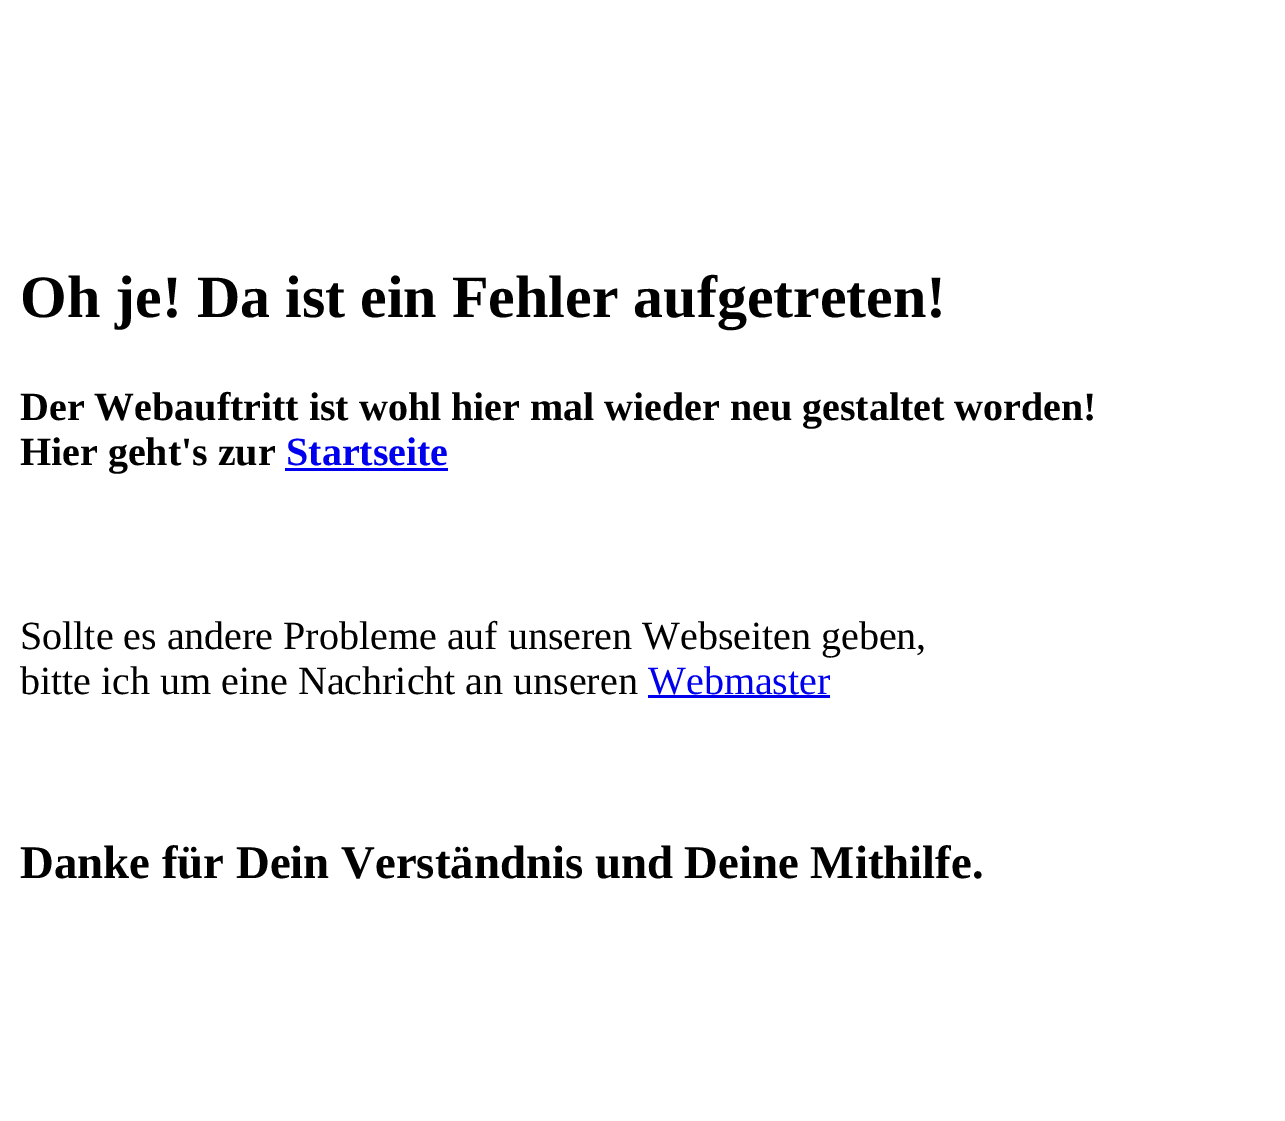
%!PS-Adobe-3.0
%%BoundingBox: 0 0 1285 1121
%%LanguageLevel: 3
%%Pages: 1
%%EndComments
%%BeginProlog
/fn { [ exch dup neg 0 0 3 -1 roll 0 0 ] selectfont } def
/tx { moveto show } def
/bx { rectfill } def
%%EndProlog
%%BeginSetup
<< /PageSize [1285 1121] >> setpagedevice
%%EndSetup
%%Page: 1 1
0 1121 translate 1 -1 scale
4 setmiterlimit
1 setgray
0 0 1285 1121 bx
/LiberationSerif-Bold 60 fn
0 setgray
(Oh je! Da ist ein Fehler aufgetreten!) 20 317 tx
/LiberationSerif-Bold 40 fn
(Der Webauftritt ist wohl hier mal wieder neu gestaltet worden!) 20 420 tx
(Hier geht's zur) 20 465 tx
0 0 0.933 setrgbcolor
(Startseite) 286 465 tx
285 468 163 3 bx
/LiberationSerif-Regular 40 fn
0 setgray
(Sollte es andere Probleme auf unseren Webseiten geben,) 20 649 tx
(bitte ich um eine Nachricht an unseren) 20 694 tx
0 0 0.933 setrgbcolor
(Webmaster) 648 694 tx
648 695 182 3 bx
/LiberationSerif-Bold 46.8 fn
0 setgray
(Danke für Dein Verständnis und Deine Mithilfe.) 20 878 tx
showpage
%%EOF
